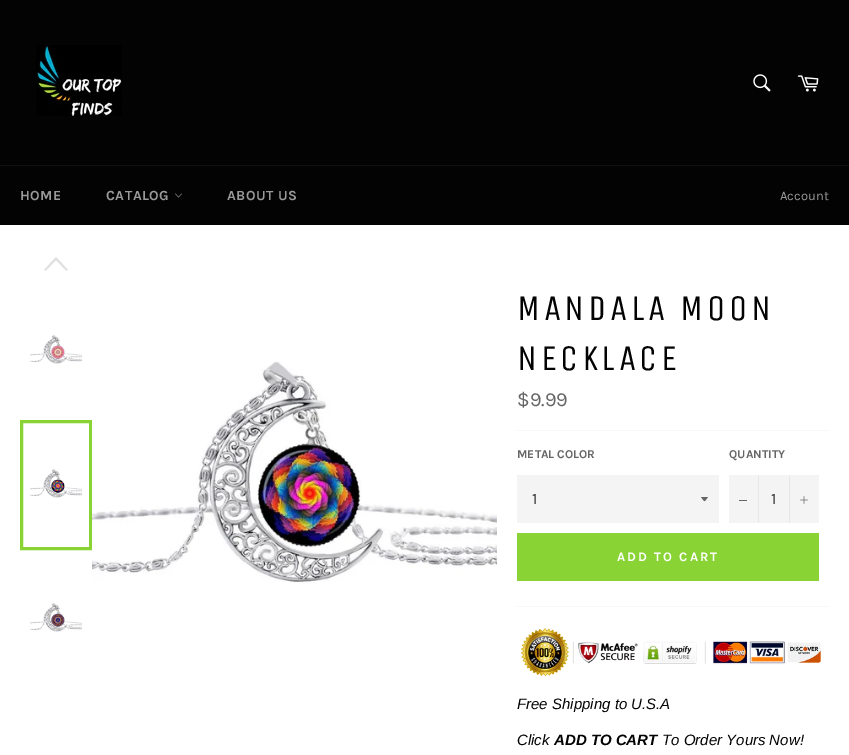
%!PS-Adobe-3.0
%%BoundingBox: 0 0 849 755
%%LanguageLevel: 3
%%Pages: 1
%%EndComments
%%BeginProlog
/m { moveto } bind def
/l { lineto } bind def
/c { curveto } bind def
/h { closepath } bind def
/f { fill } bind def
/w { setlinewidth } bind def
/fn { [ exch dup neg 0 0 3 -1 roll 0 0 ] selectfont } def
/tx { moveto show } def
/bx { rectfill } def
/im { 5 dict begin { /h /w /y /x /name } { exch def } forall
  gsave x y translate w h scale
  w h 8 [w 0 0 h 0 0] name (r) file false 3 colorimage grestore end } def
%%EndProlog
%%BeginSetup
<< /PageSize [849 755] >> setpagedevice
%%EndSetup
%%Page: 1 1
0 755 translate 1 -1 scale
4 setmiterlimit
0.012 setgray
0 0 849 755 bx
(image0.raw) 36 45 86 71 im
(image1.raw) 753 74 18 18 im
(image2.raw) 797 75 22 17 im
0.063 setgray
0 165 849 1 bx
/Karla-Bold 14 fn
0.604 setgray
20 200 m 0.5 0 (HOME) ashow
106 200 m 0.5 0 (CATALOG) ashow
(image3.raw) 175 193 7 5 im
227 200 m 0.5 0 (ABOUT US) ashow
/Karla-Regular 13 fn
(Account) 780 200 tx
1 setgray
0 225 849 530 bx
0.878 setgray
66.5 271 m 67.5 269.5 l 56 257 l 44.5 269.5 l 45.5 271 l 56 260 l h f
(image4.raw) 30 335 52 29 im
(image5.raw) 30 469 52 29 im
0.537 0.827 0.208 setrgbcolor
3 w
21.5 421.5 69 127 rectstroke
(image6.raw) 30 603 52 29 im
(image7.raw) 92 361 405 223 im
/UnicaOne-Regular 36 fn
0.012 setgray
517 320 m 3.6 0 (MANDALA MOON) ashow
517 370 m 3.6 0 (NECKLACE) ashow
/Karla-Regular 20 fn
0.4 setgray
($9.99) 517 406 tx
0.969 setgray
517 430 312 1 bx
/Karla-Bold 12 fn
0.4 setgray
(METAL COLOR) 517 458 tx
0.957 setgray
517 475 202 48 bx
0.4 setgray
701 497 m 705.5 502.5 703.5 502.5 708 497 c h f
/Karla-Regular 16 fn
0.2 setgray
(1) 532 504 tx
/Karla-Bold 12 fn
0.4 setgray
(QUANTITY) 729 458 tx
0.957 setgray
729 475 90 48 bx
0.906 setgray
758 475 1 48 bx
0.4 setgray
739 500 8 1 bx
/Karla-Regular 16 fn
0.2 setgray
(1) 771 504 tx
0.906 setgray
789 475 1 48 bx
(image8.raw) 800 496 8 8 im
0.537 0.827 0.208 setrgbcolor
517 533 302 48 bx
/Karla-Bold 13 fn
1 setgray
617 561 m 2 0 (ADD TO CART) ashow
0.969 setgray
517 606 312 1 bx
(image9.raw) 521 628 300 49 im
/LiberationSans-Italic 15 fn
0.012 setgray
(Free Shipping to U.S.A) 517 709 tx
(Click) 517 745 tx
/LiberationSans-BoldItalic 15 fn
(ADD TO CART) 554 745 tx
/LiberationSans-Italic 15 fn
(To Order Yours Now!) 662 745 tx
showpage
%%EOF
